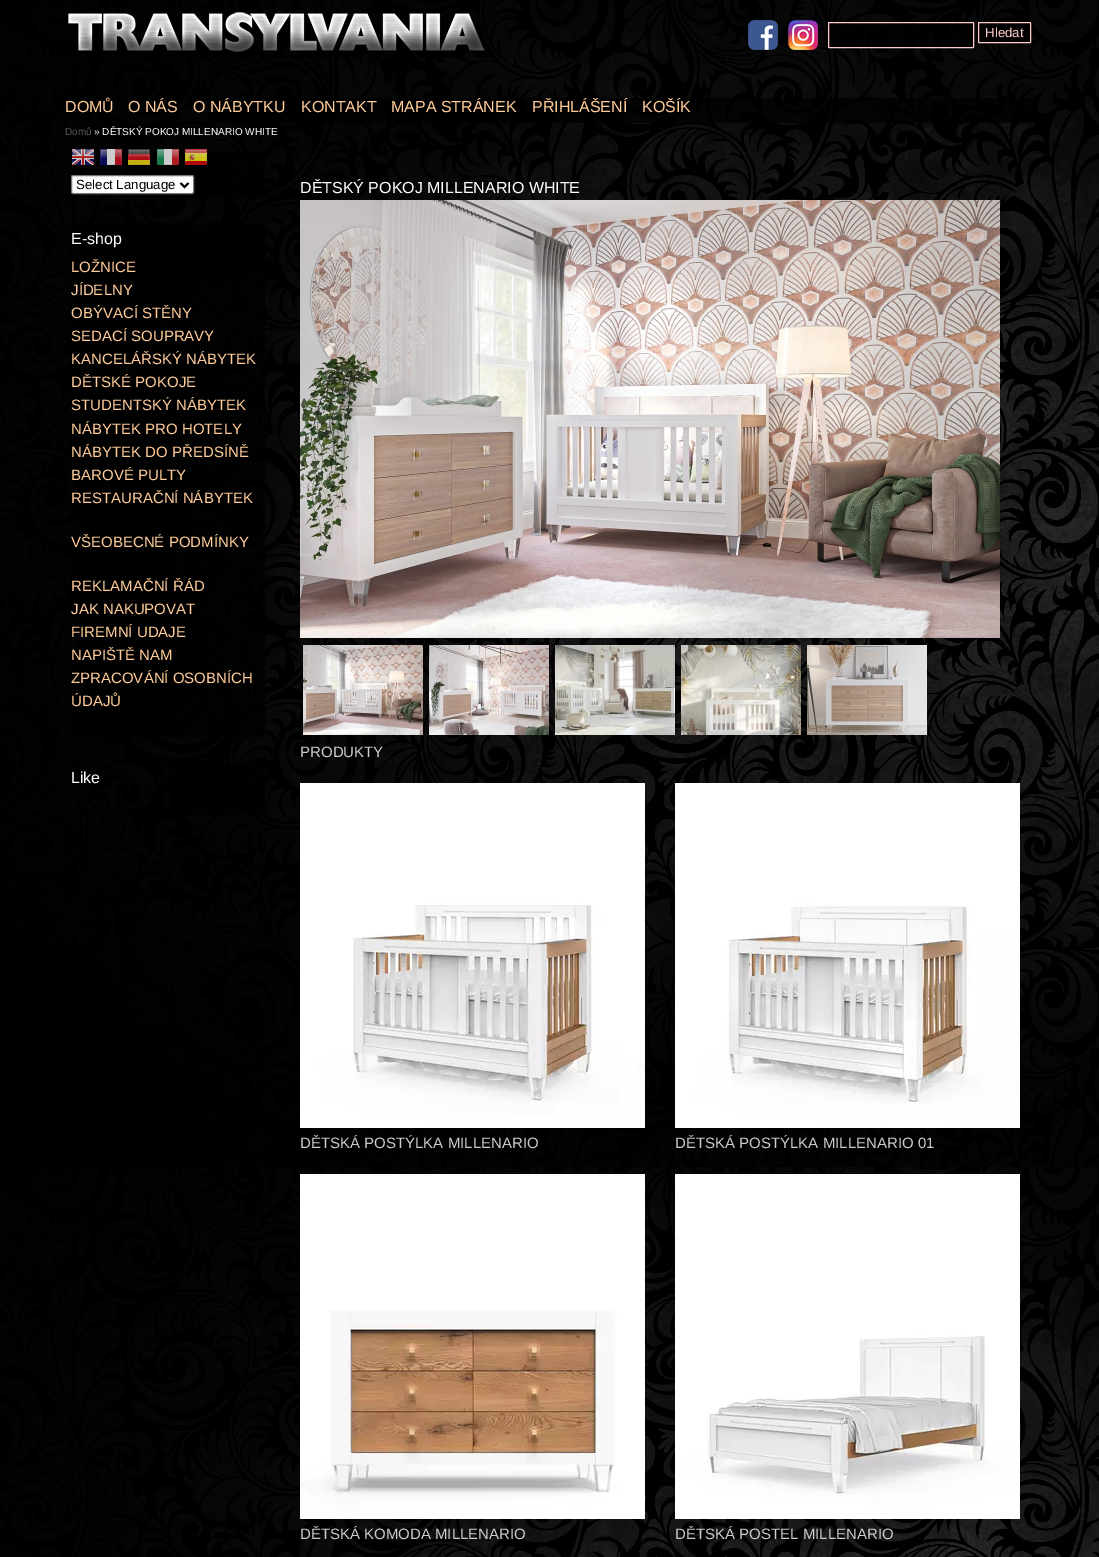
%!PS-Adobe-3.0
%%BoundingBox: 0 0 1099 1557
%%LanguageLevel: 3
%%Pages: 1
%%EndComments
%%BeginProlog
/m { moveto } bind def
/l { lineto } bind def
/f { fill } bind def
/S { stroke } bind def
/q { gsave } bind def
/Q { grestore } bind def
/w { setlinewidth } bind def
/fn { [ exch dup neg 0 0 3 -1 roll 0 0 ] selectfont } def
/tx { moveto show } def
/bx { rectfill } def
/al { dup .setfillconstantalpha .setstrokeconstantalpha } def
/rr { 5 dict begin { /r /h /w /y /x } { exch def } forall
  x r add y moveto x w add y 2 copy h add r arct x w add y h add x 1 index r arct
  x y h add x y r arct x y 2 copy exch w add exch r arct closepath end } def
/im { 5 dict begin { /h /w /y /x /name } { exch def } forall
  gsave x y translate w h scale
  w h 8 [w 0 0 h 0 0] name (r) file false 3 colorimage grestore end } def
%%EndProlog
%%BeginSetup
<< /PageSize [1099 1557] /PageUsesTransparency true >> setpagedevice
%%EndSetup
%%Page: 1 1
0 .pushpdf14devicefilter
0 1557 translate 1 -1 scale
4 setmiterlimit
1 setgray
0 0 1099 1557 bx
(image0.raw) 0 0 1099 1557 im
(image1.raw) 68 12 422 46 im
(image2.raw) 748 20 30 30 im
(image3.raw) 788 20 30 30 im
0.7 al
0 setgray
828.5 22.5 145 25 0.5 rr f
1 al
1 0.8 0.8 setrgbcolor
828.5 22.5 145 25 0.5 rr S
0 setgray
978.5 22.5 52 20 0.5 rr q f Q
1 0.8 0.8 setrgbcolor
S
/LiberationSans-Regular 13.25 fn
(Hledat) 985 37 tx
(image4.raw) 211 98 823 25 im
/LiberationSans-Regular 16 fn
1 0.8 0.6 setrgbcolor
(DOMŮ) 65 112 tx
(O NÁS) 128 112 tx
(O NÁBYTKU) 193 112 tx
(KONTAKT) 301 112 tx
(MAPA STRÁNEK) 391 112 tx
(PŘIHLÁŠENÍ) 532 112 tx
(KOŠÍK) 642 112 tx
/LiberationSans-Regular 10 fn
0.345 setgray
(Domů) 65 135 tx
1 setgray
(» DĚTSKÝ POKOJ MILLENARIO WHITE) 94 135 tx
0.7 al
0 setgray
135 152 130 46 bx
1 al
(image5.raw) 72 149 22 16 im
(image6.raw) 100 149 22 16 im
(image7.raw) 128 149 22 16 im
(image8.raw) 157 149 22 16 im
(image9.raw) 185 149 22 16 im
1 setgray
71.5 175.5 122 18 1.5 rr q f Q
0.463 setgray
S
0 setgray
2 w
180.5 183 m 184.5 187 l 188.5 183 l S
/LiberationSans-Regular 13.25 fn
(Select Language) 76 189 tx
0.7 al
74 223 191 514 bx
/LiberationSans-Regular 16 fn
1 al
1 setgray
(E-shop) 71 244 tx
/LiberationSans-Regular 15 fn
1 0.8 0.6 setrgbcolor
(LOŽNICE) 71 272 tx
(JÍDELNY) 71 295 tx
(OBÝVACÍ STĚNY) 71 318 tx
(SEDACÍ SOUPRAVY) 71 341 tx
(KANCELÁŘSKÝ NÁBYTEK) 71 364 tx
(DĚTSKÉ POKOJE) 71 387 tx
(STUDENTSKÝ NÁBYTEK) 71 410 tx
(NÁBYTEK PRO HOTELY) 71 434 tx
(NÁBYTEK DO PŘEDSÍNĚ) 71 457 tx
(BAROVÉ PULTY) 71 480 tx
(RESTAURAČNÍ NÁBYTEK) 71 503 tx
(VŠEOBECNÉ PODMÍNKY) 71 547 tx
(REKLAMAČNÍ ŘÁD) 71 591 tx
(JAK NAKUPOVAT) 71 614 tx
(FIREMNÍ UDAJE) 71 637 tx
(NAPIŠTĚ NAM) 71 660 tx
(ZPRACOVÁNÍ OSOBNÍCH) 71 683 tx
(ÚDAJŮ) 71 706 tx
0.7 al
0 setgray
169 762 96 53 bx
/LiberationSans-Regular 16 fn
1 al
1 setgray
(Like) 71 783 tx
(DĚTSKÝ POKOJ MILLENARIO WHITE) 300 193 tx
(image10.raw) 300 200 700 438 im
(image11.raw) 303 645 120 90 im
(image12.raw) 429 645 120 90 im
(image13.raw) 555 645 120 90 im
(image14.raw) 681 645 120 90 im
(image15.raw) 807 645 120 90 im
/LiberationSans-Regular 15 fn
0.8 setgray
(PRODUKTY) 300 757 tx
(image16.raw) 300 783 345 345 im
(DĚTSKÁ POSTÝLKA MILLENARIO) 300 1148 tx
(image17.raw) 675 783 345 345 im
(DĚTSKÁ POSTÝLKA MILLENARIO 01) 675 1148 tx
(image18.raw) 300 1174 345 345 im
(DĚTSKÁ KOMODA MILLENARIO) 300 1539 tx
(image19.raw) 675 1174 345 345 im
(DĚTSKÁ POSTEL MILLENARIO) 675 1539 tx
.poppdf14devicefilter showpage
%%EOF
